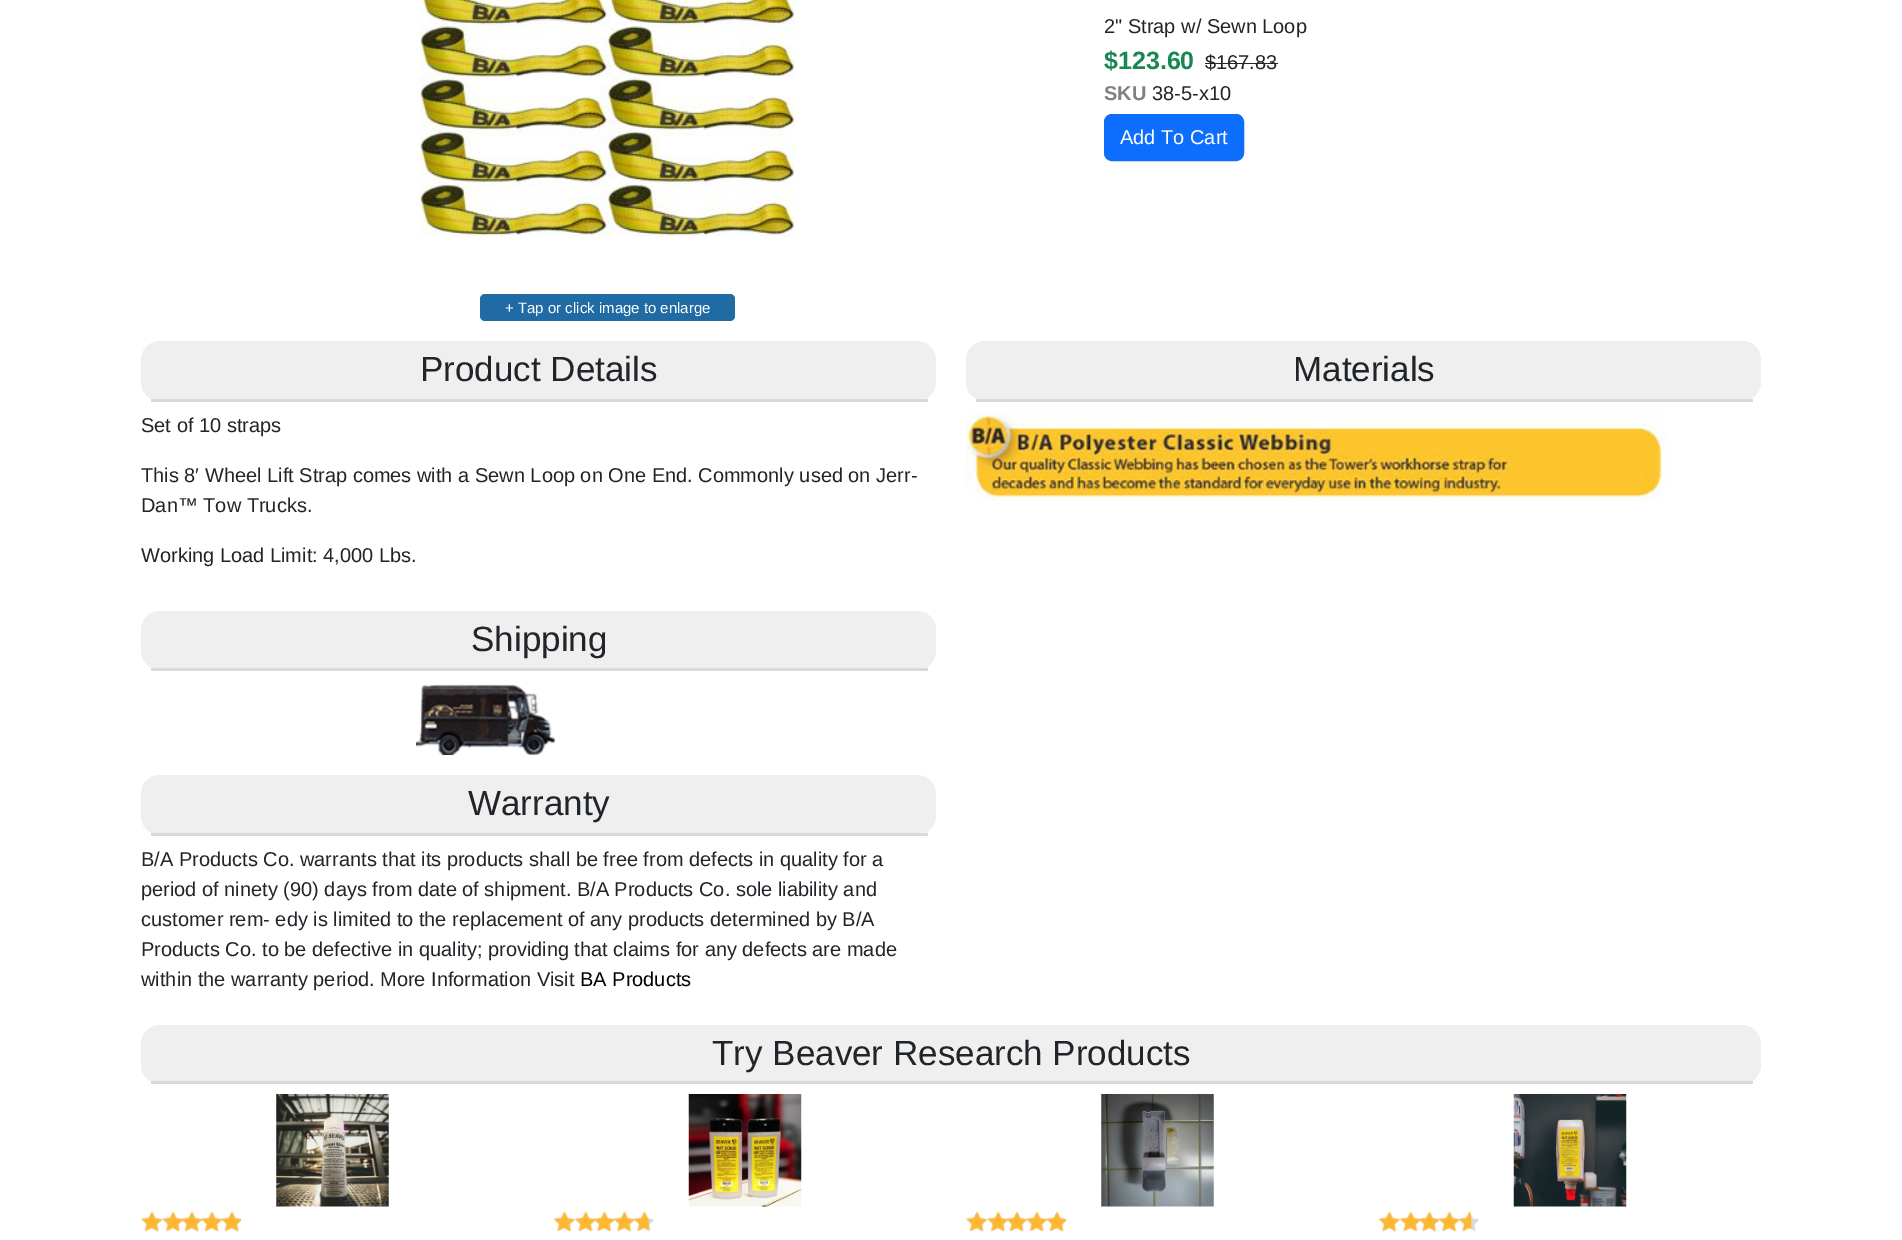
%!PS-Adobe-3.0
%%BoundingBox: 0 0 1902 1240
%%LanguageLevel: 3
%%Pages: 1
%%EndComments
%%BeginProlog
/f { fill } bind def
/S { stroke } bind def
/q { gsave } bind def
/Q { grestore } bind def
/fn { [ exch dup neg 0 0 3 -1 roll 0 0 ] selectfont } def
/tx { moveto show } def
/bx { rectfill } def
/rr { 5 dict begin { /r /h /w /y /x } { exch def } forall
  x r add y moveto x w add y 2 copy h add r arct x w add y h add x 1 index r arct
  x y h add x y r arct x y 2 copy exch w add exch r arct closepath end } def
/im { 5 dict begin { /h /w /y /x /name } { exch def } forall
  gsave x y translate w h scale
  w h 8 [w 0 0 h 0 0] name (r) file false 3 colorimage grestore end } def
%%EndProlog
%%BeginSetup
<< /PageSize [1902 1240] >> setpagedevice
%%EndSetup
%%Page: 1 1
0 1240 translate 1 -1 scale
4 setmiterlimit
1 setgray
0 0 1902 1240 bx
/LiberationSans-Regular 20 fn
0.129 0.145 0.161 setrgbcolor
(2" Strap w/ Sewn Loop) 1104 33 tx
/LiberationSans-Bold 25 fn
0.098 0.529 0.329 setrgbcolor
($123.60) 1104 69 tx
/LiberationSans-Regular 20 fn
0.129 0.145 0.161 setrgbcolor
($167.83) 1205 69 tx
1205 63 73 1 bx
/LiberationSans-Bold 20 fn
0.502 setgray
(SKU) 1104 100 tx
/LiberationSans-Regular 20 fn
0.129 0.145 0.161 setrgbcolor
(38-5-x10) 1152 100 tx
0.051 0.431 0.992 setrgbcolor
1104.5 114.5 139 46 7.5 rr q f Q
S
1 setgray
(Add To Cart) 1120 144 tx
(image0.raw) 420 0 375 238 im
0.125 0.42 0.643 setrgbcolor
480 294 255 27 5 rr f
/LiberationSans-Regular 15 fn
1 setgray
(+ Tap or click image to enlarge) 505 313 tx
0.937 setgray
141 341 795 60 19 rr f
0.851 setgray
151 399 777 3 bx
/LiberationSans-Regular 35 fn
0.129 0.145 0.161 setrgbcolor
(Product Details) 420 381 tx
/LiberationSans-Regular 20 fn
(Set of 10 straps) 141 432 tx
(This 8′ Wheel Lift Strap comes with a Sewn Loop on One End. Commonly used on Jerr-) 141 482 tx
(Dan™ Tow Trucks.) 141 512 tx
(Working Load Limit: 4,000 Lbs.) 141 562 tx
0.937 setgray
966 341 795 60 19 rr f
0.851 setgray
976 399 777 3 bx
/LiberationSans-Regular 35 fn
0.129 0.145 0.161 setrgbcolor
(Materials) 1293 381 tx
(image1.raw) 966 411 700 90 im
0.937 setgray
141 611 795 59 19 rr f
0.851 setgray
151 668 777 3 bx
0.129 0.145 0.161 setrgbcolor
(Shipping) 471 651 tx
(image2.raw) 416 684 139 71 im
0.937 setgray
141 775 795 60 19 rr f
0.851 setgray
151 833 777 3 bx
0.129 0.145 0.161 setrgbcolor
(Warranty) 468 815 tx
/LiberationSans-Regular 20 fn
(B/A Products Co. warrants that its products shall be free from defects in quality for a) 141 866 tx
(period of ninety \(90\) days from date of shipment. B/A Products Co. sole liability and) 141 896 tx
(customer rem- edy is limited to the replacement of any products determined by B/A) 141 926 tx
(Products Co. to be defective in quality; providing that claims for any defects are made) 141 956 tx
(within the warranty period. More Information Visit) 141 986 tx
0 setgray
(BA Products) 580 986 tx
0.937 setgray
141 1025 1620 59 19 rr f
0.851 setgray
151 1081 1602 3 bx
/LiberationSans-Regular 35 fn
0.129 0.145 0.161 setrgbcolor
(Try Beaver Research Products) 712 1065 tx
(image3.raw) 276 1094 113 113 im
(image4.raw) 141 1212 100 20 im
(image5.raw) 141 1211 101 21 im
(image6.raw) 688 1094 114 113 im
(image7.raw) 554 1211 100 21 im
(image8.raw) 554 1211 95 21 im
(image9.raw) 1101 1094 113 113 im
(image4.raw) 966 1212 100 20 im
(image5.raw) 966 1211 101 21 im
(image10.raw) 1513 1094 114 113 im
(image7.raw) 1379 1211 100 21 im
(image11.raw) 1379 1211 93 21 im
showpage
%%EOF
